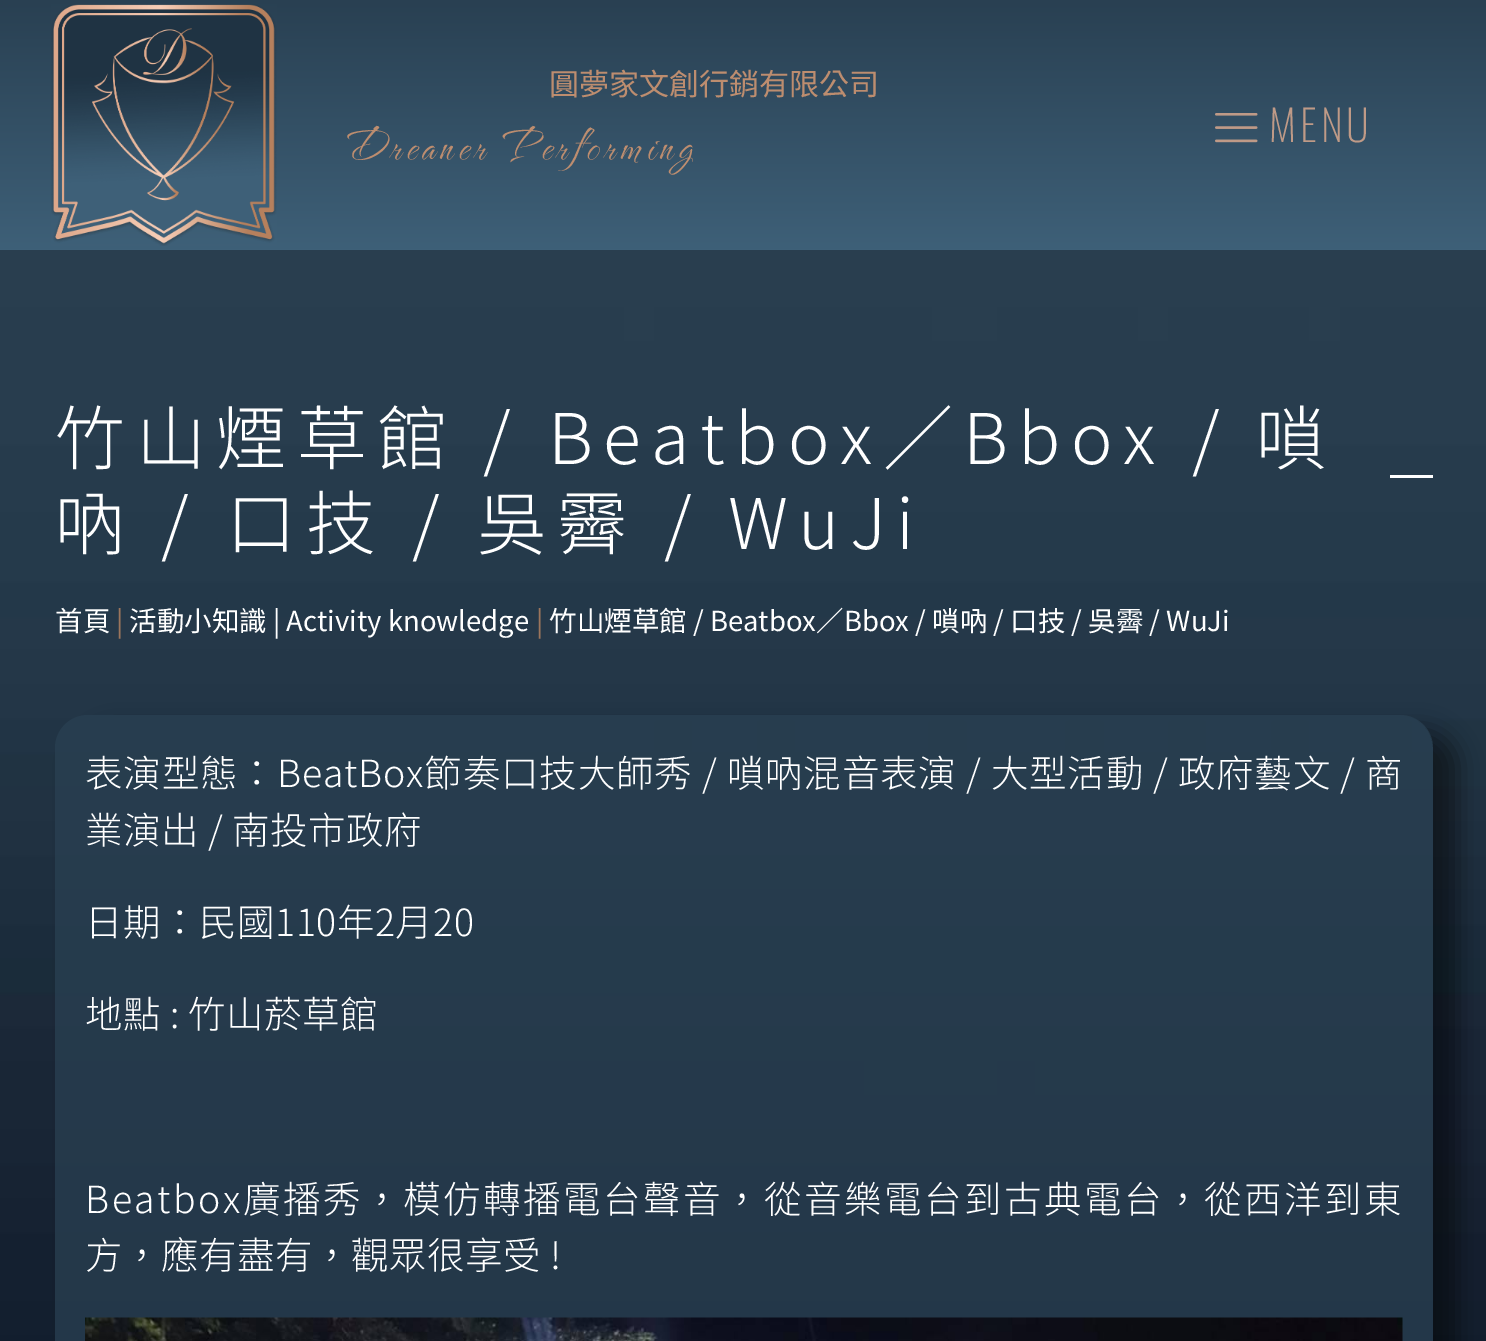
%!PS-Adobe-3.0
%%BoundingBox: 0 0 1486 1341
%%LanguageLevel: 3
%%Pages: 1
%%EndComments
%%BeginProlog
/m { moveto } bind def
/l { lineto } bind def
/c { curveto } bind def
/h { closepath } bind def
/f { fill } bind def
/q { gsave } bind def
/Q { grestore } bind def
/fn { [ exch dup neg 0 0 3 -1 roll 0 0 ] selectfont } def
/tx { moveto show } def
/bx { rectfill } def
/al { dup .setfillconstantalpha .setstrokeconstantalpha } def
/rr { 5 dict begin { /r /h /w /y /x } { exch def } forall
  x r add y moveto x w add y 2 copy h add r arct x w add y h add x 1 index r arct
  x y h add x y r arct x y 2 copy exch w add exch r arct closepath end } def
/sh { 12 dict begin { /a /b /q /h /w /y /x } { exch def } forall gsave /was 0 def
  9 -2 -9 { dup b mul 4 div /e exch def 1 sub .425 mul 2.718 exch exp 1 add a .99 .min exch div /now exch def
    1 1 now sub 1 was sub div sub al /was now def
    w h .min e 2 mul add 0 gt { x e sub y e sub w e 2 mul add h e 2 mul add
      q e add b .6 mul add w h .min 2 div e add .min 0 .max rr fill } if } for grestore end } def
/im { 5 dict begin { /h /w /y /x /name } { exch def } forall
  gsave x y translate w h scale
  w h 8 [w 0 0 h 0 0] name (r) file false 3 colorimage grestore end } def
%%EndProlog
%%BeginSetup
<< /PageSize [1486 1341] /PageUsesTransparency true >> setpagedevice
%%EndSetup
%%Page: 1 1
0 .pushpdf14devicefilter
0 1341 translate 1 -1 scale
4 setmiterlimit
1 setgray
0 0 1486 1341 bx
(image0.raw) 0 250 1486 1091 im
q 0 0 m 1486 0 l 1486 250 l 0 250 l h clip newpath
<< /ShadingType 2 /ColorSpace /DeviceRGB /Coords [744 0 744 250] /Extend [true true] /Function << /FunctionType 2 /Domain [0 1] /C0 [0.161 0.251 0.322] /C1 [0.243 0.376 0.471] /N 1 >> >> shfill Q
(image1.raw) 51 4 226 242 im
/NotoSansTC-Regular 30 fn
0.741 0.553 0.435 setrgbcolor
(圓夢家文創行銷有限公司) 549 95 tx
/TheNautigal-Regular 50 fn
345 159 m 5 0 (Dreaner Performing) ashow
(image2.raw) 1215 113 43 30 im
/Oswald-ExtraLight 42.5 fn
0.749 0.604 0.529 setrgbcolor
1269 142 m 4 0 (MENU) ashow
/NotoSansTC-Light 70 fn
1 setgray
55 464 m 10.5 0 (竹山煙草館 / Beatbox／Bbox / 嗩) ashow
55 549 m 10.5 0 (吶 / 口技 / 吳霽 / WuJi) ashow
1390 475 43 3 bx
/NotoSansTC-Regular 27.5 fn
(首頁) 55 631 tx
0.612 0.459 0.361 setrgbcolor
(|) 116 631 tx
1 setgray
(活動小知識 | Activity knowledge) 129 631 tx
0.612 0.459 0.361 setrgbcolor
(|) 536 631 tx
1 setgray
(竹山煙草館 / Beatbox／Bbox / 嗩吶 / 口技 / 吳霽 / WuJi) 549 631 tx
q
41 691 m 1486 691 l 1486 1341 l 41 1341 l h 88 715 m 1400 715 l 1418 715 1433 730 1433 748 c 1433 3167 l 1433 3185 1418 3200 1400 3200 c 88 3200 l 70 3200 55 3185 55 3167 c 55 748 l 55 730 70 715 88 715 c h eoclip newpath
0 setgray
80 730 1378 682 33 12.5 0.5 sh
Q
0.74 al
0.161 0.251 0.322 setrgbcolor
55 715 1378 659 33 rr f
/NotoSansTC-Light 37.5 fn
1 al
1 setgray
85 787 m 0.85 0 (表演型態：BeatBox節奏口技大師秀 / 嗩吶混音表演 / 大型活動 / 政府藝文 / 商) ashow
85 844 m 0.5 0 (業演出 / 南投市政府) ashow
85 936 m 0.5 0 (日期：民國110年2月20) ashow
85 1028 m 0.5 0 (地點 : 竹山菸草館) ashow
85 1213 m 2.55 0 (Beatbox廣播秀，模仿轉播電台聲音，從音樂電台到古典電台，從西洋到東) ashow
85 1269 m 0.5 0 (方，應有盡有，觀眾很享受 !) ashow
(image3.raw) 85 1317 1318 24 im
.poppdf14devicefilter showpage
%%EOF
